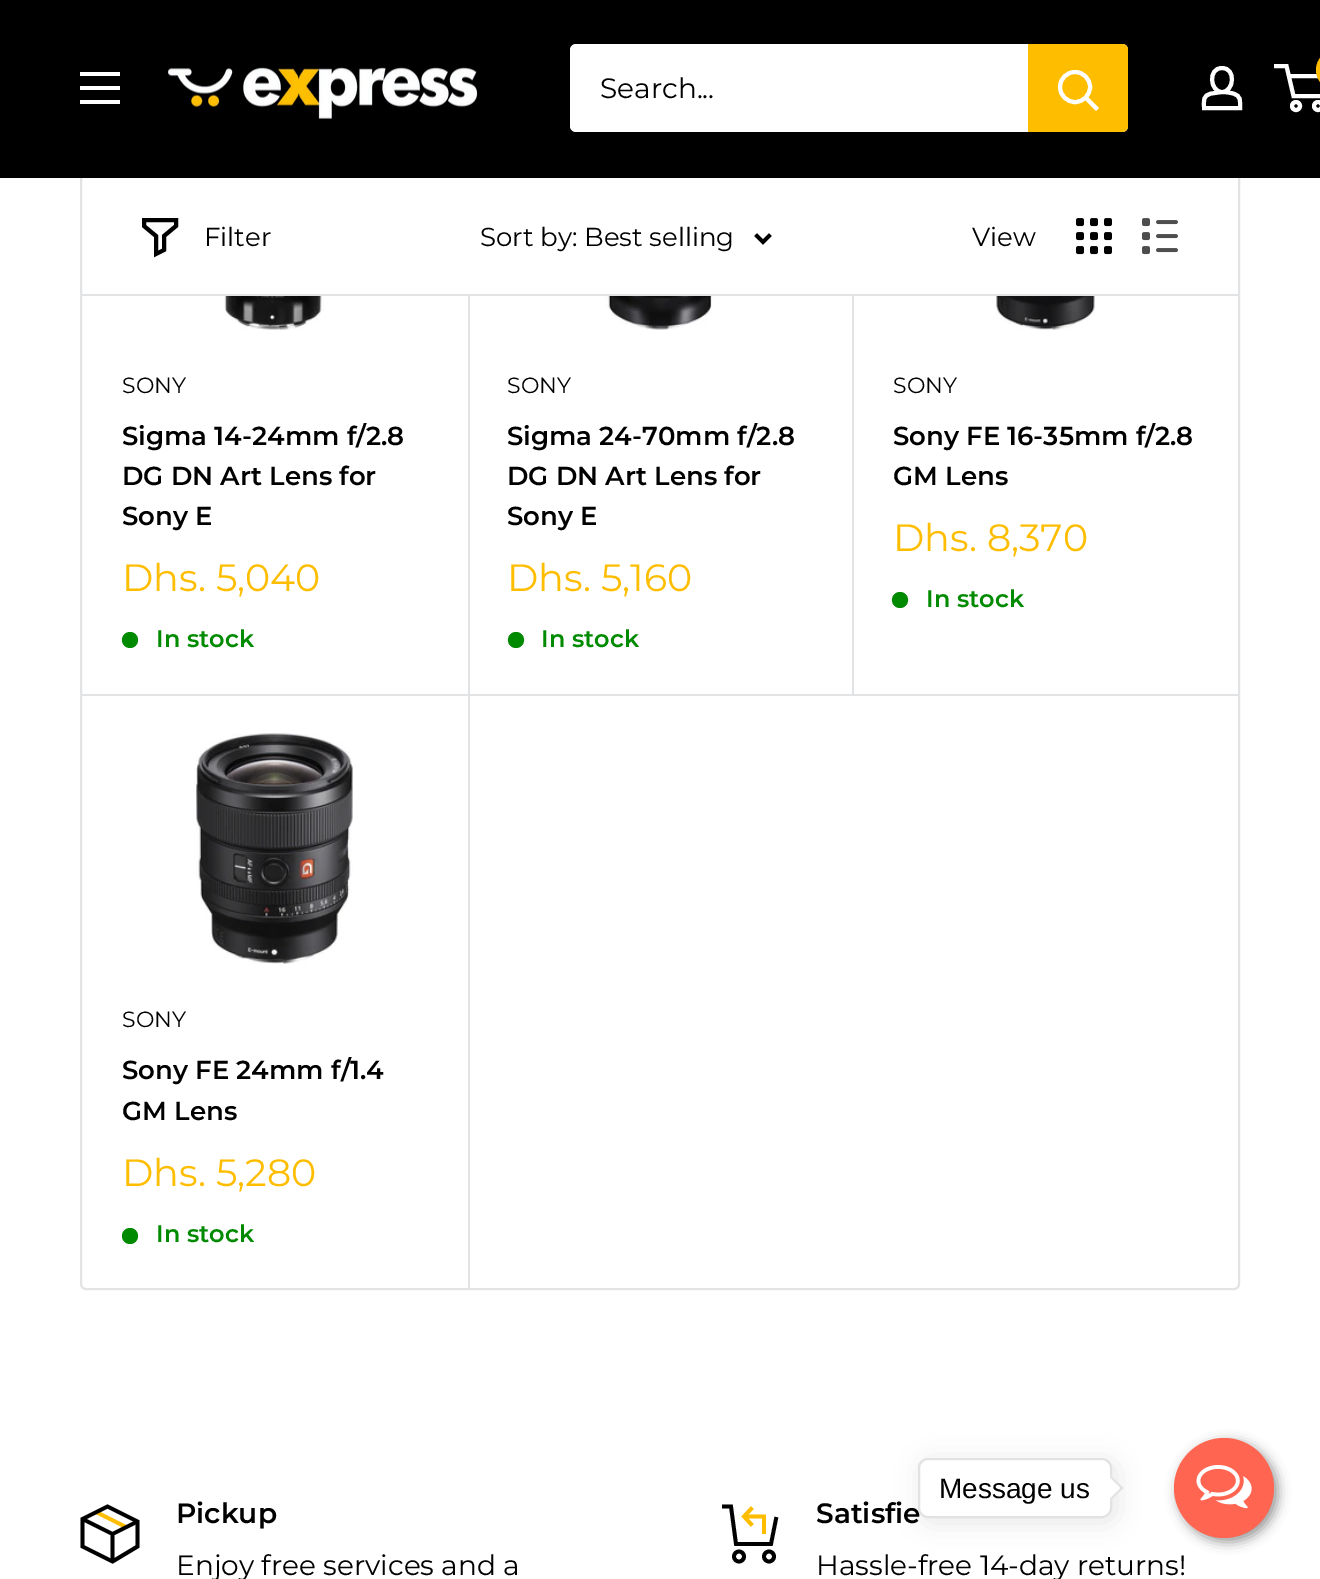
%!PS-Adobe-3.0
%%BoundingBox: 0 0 1320 1579
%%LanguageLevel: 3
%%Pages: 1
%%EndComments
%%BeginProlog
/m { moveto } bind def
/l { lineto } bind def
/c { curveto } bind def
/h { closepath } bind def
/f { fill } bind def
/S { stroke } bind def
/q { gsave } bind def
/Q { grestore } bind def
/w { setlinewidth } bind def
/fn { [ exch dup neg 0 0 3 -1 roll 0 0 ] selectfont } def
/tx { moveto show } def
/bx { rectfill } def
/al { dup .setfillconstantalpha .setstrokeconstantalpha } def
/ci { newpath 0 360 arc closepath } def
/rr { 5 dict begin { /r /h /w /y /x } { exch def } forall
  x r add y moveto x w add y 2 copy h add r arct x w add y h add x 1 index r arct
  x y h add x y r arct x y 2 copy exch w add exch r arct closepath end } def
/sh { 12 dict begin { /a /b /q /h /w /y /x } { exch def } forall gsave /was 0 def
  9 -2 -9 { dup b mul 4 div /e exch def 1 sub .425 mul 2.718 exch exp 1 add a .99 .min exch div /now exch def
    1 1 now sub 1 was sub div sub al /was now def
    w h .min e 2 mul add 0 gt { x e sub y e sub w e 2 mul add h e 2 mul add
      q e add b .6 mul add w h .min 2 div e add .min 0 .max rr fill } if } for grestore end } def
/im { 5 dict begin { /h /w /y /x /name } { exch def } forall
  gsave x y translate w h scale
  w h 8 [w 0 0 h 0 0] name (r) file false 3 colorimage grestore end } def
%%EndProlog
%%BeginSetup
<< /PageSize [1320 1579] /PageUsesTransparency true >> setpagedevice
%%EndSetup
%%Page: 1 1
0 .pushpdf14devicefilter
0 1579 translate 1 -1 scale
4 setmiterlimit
1 setgray
0 0 1320 1579 bx
0.882 0.89 0.894 setrgbcolor
2 w
81 -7 1158 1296 5 rr S
0 setgray
0 0 1320 178 bx
1 setgray
80 100 m 120 100 l 120 104 l 80 104 l h 80 72 m 120 72 l 120 76 l 80 76 l h 80 86 m 120 86 l 120 90 l 80 90 l h eofill
(image0.raw) 167 67 311 52 im
570 44 558 88 6 rr f
/Montserrat-Regular 28 fn
0 setgray
(Search...) 600 98 tx
1 0.741 0 setrgbcolor
1028 44 m 1122 44 l 1125.5 44 1128 46.5 1128 50 c 1128 126 l 1128 129.5 1125.5 132 1122 132 c 1028 132 l h f
1 setgray
4 w
2 setlinecap
1096 108 m 1086 98 l S
0 setlinecap
1075 87 15 ci S
1222 92 m 1226 92 1229.5 92.5 1233 93.5 c 1241.5 96 1240 100.5 1240 108 c 1204 108 l 1204 100 1202.5 95.5 1211.5 93.5 c h 1222 92 m 1210 92 1207.5 68 1222 68 c 1236.5 68 1234 92 1222 92 c h S
1296 106 4 ci S
1318 106 4 ci S
1288.5 76 m 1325 76 l 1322.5 96 l 1293.5 96 l 1286.5 66 l 1274 66 l S
1 0.741 0 setrgbcolor
1316 50 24 40 20 rr f
0.882 0.89 0.894 setrgbcolor
82 294 1156 2 bx
0 setgray
2 setlinecap
176 226 m 164 236 l 164 250 l 156 254 l 156 236 l 144 226 l 144 220 l 176 220 l h S
/Montserrat-Regular 26 fn
(Filter) 204 246 tx
(Sort by: Best selling) 480 246 tx
3.8 w
769 236 m 763 242 l 757 236 l S
(View) 972 246 tx
(image1.raw) 1076 218 36 37 im
(image2.raw) 1142 218 36 37 im
0.882 0.89 0.894 setrgbcolor
82 694 1156 2 bx
468 296 2 992 bx
(image3.raw) 204 296 141 34 im
/Montserrat-Regular 22 fn
0 setgray
(SONY) 122 393 tx
/Montserrat-SemiBold 26 fn
(Sigma 14-24mm f/2.8) 122 445 tx
(DG DN Art Lens for) 122 485 tx
(Sony E) 122 525 tx
/Montserrat-Regular 38 fn
1 0.741 0 setrgbcolor
(Dhs. 5,040) 122 591 tx
0 0.541 0 setrgbcolor
130 640 8 ci f
/Montserrat-SemiBold 24 fn
(In stock) 156 647 tx
(image4.raw) 587 296 147 34 im
0.882 0.89 0.894 setrgbcolor
852 296 2 398 bx
/Montserrat-Regular 22 fn
0 setgray
(SONY) 507 393 tx
/Montserrat-SemiBold 26 fn
(Sigma 24-70mm f/2.8) 507 445 tx
(DG DN Art Lens for) 507 485 tx
(Sony E) 507 525 tx
/Montserrat-Regular 38 fn
1 0.741 0 setrgbcolor
(Dhs. 5,160) 507 591 tx
0 0.541 0 setrgbcolor
516 640 8 ci f
/Montserrat-SemiBold 24 fn
(In stock) 541 647 tx
(image5.raw) 973 296 145 34 im
/Montserrat-Regular 22 fn
0 setgray
(SONY) 893 393 tx
/Montserrat-SemiBold 26 fn
(Sony FE 16-35mm f/2.8) 893 445 tx
(GM Lens) 893 485 tx
/Montserrat-Regular 38 fn
1 0.741 0 setrgbcolor
(Dhs. 8,370) 893 551 tx
0 0.541 0 setrgbcolor
900 600 8 ci f
/Montserrat-SemiBold 24 fn
(In stock) 926 607 tx
(image6.raw) 196 733 157 231 im
/Montserrat-Regular 22 fn
0 setgray
(SONY) 122 1027 tx
/Montserrat-SemiBold 26 fn
(Sony FE 24mm f/1.4) 122 1079 tx
(GM Lens) 122 1120 tx
/Montserrat-Regular 38 fn
1 0.741 0 setrgbcolor
(Dhs. 5,280) 122 1186 tx
0 0.541 0 setrgbcolor
130 1236 8 ci f
/Montserrat-SemiBold 24 fn
(In stock) 156 1242 tx
0 setgray
922 1462 194 60 10 13 0.1 sh
/Montserrat-SemiBold 28 fn
(Satisfie) 816 1523 tx
1 setgray
919 1459 192 58 9 rr q f Q
0.886 setgray
2 w
0 setlinecap
S
/LiberationSans-Regular 28 fn
0 setgray
(Message us) 939 1498 tx
1 setgray
1100.5 1488 m 1112 1476.5 l 1123.5 1488 l 1112 1499.5 l h f
0.886 setgray
1110.5 1478 m 1112 1476.5 l 1123.5 1488 l 1122 1489.5 l h f
1110.5 1498 m 1122 1486.5 l 1123.5 1488 l 1112 1499.5 l h f
0 setgray
1178 1442 100 100 50 6 0.4 sh
1 0.396 0.314 setrgbcolor
1224 1488 50 ci f
(image7.raw) 1196 1465 56 44 im
1 0.741 0 setrgbcolor
3.8 w
96 1512 m 126 1527 l S
0 setgray
137.5 1521.5 m 112.5 1534 l 82.5 1519 l 112.5 1534 m 112.5 1561.5 l S
2 setlinecap
137.5 1521.5 m 137.5 1546.5 l 112.5 1561.5 l 82.5 1546.5 l 82.5 1519 l 107.5 1506.5 l h S
/Montserrat-SemiBold 28 fn
(Pickup) 176 1523 tx
/Montserrat-Regular 28 fn
(Enjoy free services and a) 176 1575 tx
1 0.741 0 setrgbcolor
0 setlinecap
744 1516.5 m 764 1516.5 l 764 1534 l S
2 setlinecap
751 1524 m 744 1516.5 l 751 1509 l S
0 setgray
776 1519 m 771 1544 l 736 1544 l 731 1506.5 l 724 1506.5 l S
0 setlinecap
739 1556.5 5 ci S
769 1556.5 5 ci S
(Hassle-free 14-day returns!) 816 1575 tx
.poppdf14devicefilter showpage
%%EOF
